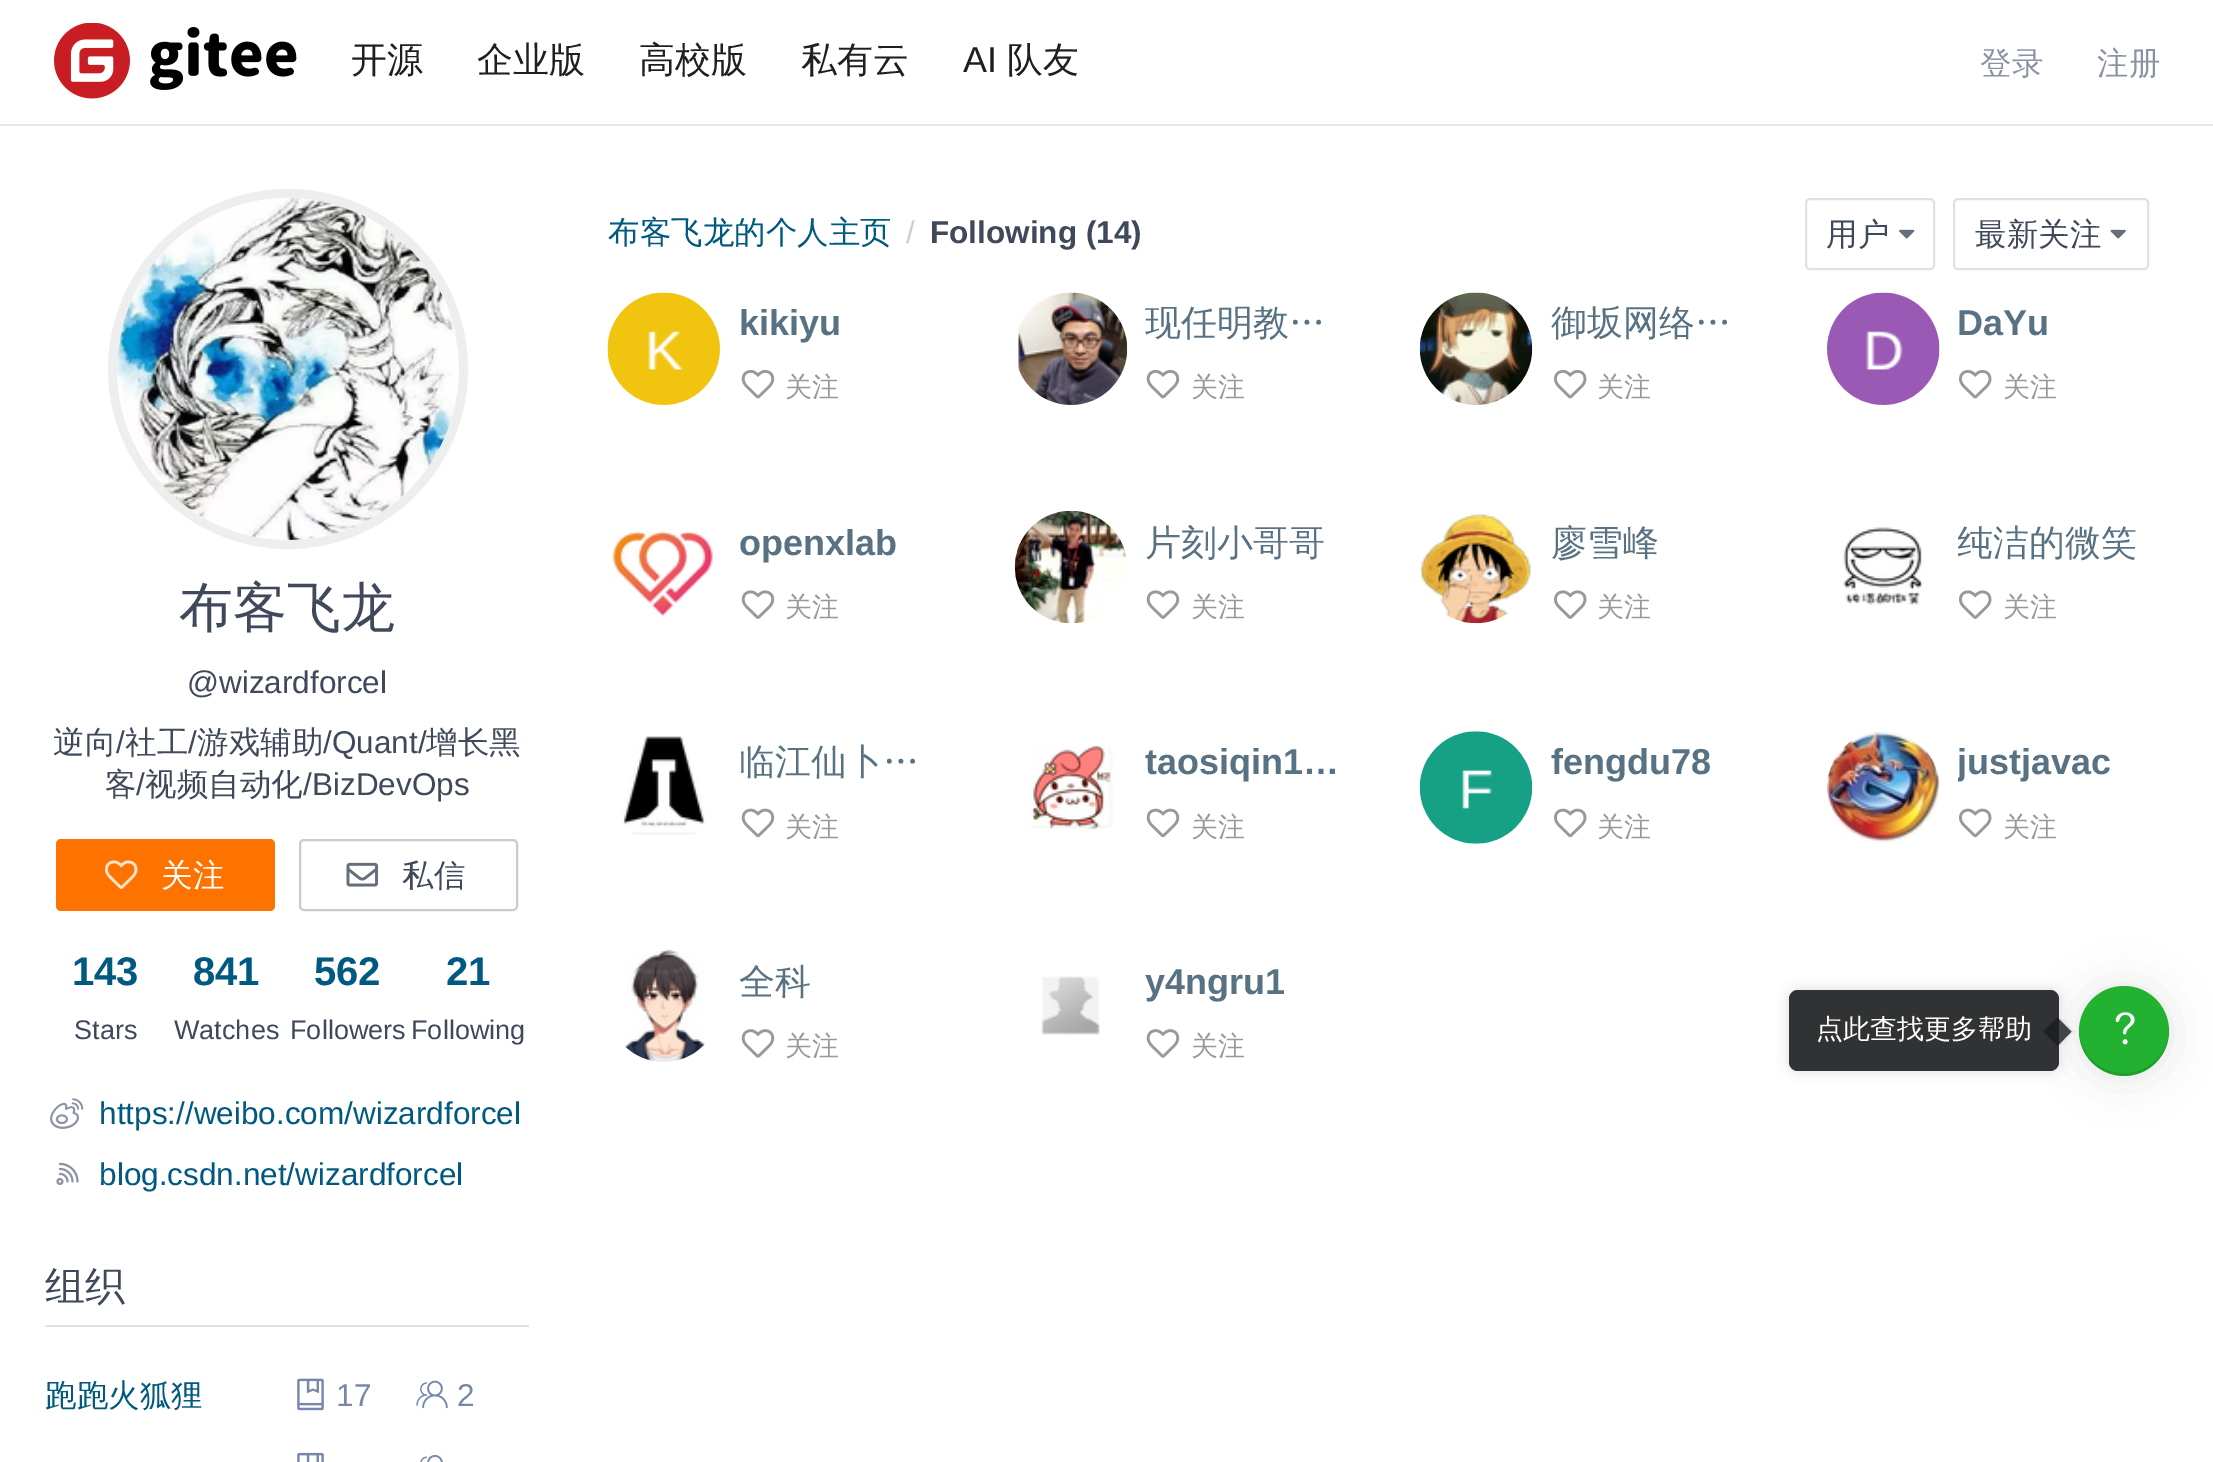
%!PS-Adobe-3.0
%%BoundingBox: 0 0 2213 1462
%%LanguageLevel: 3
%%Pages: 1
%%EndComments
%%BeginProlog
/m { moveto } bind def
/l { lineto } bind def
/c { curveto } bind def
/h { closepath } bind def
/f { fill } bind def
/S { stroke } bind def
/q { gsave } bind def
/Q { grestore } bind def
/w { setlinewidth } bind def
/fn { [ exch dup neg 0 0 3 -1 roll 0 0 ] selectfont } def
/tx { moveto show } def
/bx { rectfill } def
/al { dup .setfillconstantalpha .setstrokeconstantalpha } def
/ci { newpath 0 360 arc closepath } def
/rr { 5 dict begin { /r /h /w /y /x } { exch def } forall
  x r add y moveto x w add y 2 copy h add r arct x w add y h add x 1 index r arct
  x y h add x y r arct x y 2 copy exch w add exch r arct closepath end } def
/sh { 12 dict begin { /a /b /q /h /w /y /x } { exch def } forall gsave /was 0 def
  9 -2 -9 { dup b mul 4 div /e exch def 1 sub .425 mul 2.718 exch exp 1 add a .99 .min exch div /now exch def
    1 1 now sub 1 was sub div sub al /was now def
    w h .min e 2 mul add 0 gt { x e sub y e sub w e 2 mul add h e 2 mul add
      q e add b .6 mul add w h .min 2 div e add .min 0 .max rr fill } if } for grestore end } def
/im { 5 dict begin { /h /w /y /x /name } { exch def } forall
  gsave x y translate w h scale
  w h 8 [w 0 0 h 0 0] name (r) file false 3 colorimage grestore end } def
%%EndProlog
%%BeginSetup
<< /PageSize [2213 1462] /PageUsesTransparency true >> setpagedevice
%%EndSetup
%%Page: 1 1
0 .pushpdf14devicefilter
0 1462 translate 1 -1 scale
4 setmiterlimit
1 setgray
0 0 2213 1462 bx
0.89 0.914 0.929 setrgbcolor
0 124 2213 2 bx
(image0.raw) 54 23 243 76 im
/WenQuanYiZenHei-Medium 36 fn
0.122 setgray
(开源) 351 72 tx
(企业版) 477 72 tx
(高校版) 639 72 tx
(私有云) 801 72 tx
/LiberationSans-Regular 36 fn
(AI) 963 72 tx
/WenQuanYiZenHei-Medium 36 fn
(队友) 1007 72 tx
/WenQuanYiZenHei-Medium 31.5 fn
0.549 0.573 0.643 setrgbcolor
(登录) 1980 74 tx
(注册) 2097 74 tx
0.933 setgray
9 w
288 369 175.5 ci S
(image1.raw) 117 198 338 342 im
/WenQuanYiZenHei-Medium 54 fn
0.251 0.282 0.357 setrgbcolor
(布客飞龙) 179 626 tx
/LiberationSans-Regular 31.5 fn
(@wizardforcel) 187 693 tx
/WenQuanYiZenHei-Medium 31.5 fn
(逆向) 53 753 tx
/LiberationSans-Regular 31.5 fn
(/) 116 753 tx
/WenQuanYiZenHei-Medium 31.5 fn
(社工) 125 753 tx
/LiberationSans-Regular 31.5 fn
(/) 188 753 tx
/WenQuanYiZenHei-Medium 31.5 fn
(游戏辅助) 197 753 tx
/LiberationSans-Regular 31.5 fn
(/Quant/) 323 753 tx
/WenQuanYiZenHei-Medium 31.5 fn
(增长黑) 426 753 tx
(客) 105 795 tx
/LiberationSans-Regular 31.5 fn
(/) 136 795 tx
/WenQuanYiZenHei-Medium 31.5 fn
(视频自动化) 145 795 tx
/LiberationSans-Regular 31.5 fn
(/BizDevOps) 303 795 tx
0.996 0.451 0 setrgbcolor
56 839 219 72 5 rr f
(image2.raw) 105 860 33 29 im
/WenQuanYiZenHei-Medium 31.5 fn
1 setgray
(关注) 161 886 tx
0.8 setgray
2 w
300 840 217 70 4 rr S
(image3.raw) 346 862 32 25 im
0.251 0.282 0.357 setrgbcolor
(私信) 402 886 tx
/LiberationSans-Bold 40 fn
0 0.349 0.502 setrgbcolor
(143) 72 985 tx
/LiberationSans-Regular 27 fn
0.251 0.282 0.357 setrgbcolor
(Stars) 74 1039 tx
/LiberationSans-Bold 40 fn
0 0.349 0.502 setrgbcolor
(841) 193 985 tx
/LiberationSans-Regular 27 fn
0.251 0.282 0.357 setrgbcolor
(Watches) 174 1039 tx
/LiberationSans-Bold 40 fn
0 0.349 0.502 setrgbcolor
(562) 314 985 tx
/LiberationSans-Regular 27 fn
0.251 0.282 0.357 setrgbcolor
(Followers) 290 1039 tx
/LiberationSans-Bold 40 fn
0 0.349 0.502 setrgbcolor
(21) 446 985 tx
/LiberationSans-Regular 27 fn
0.251 0.282 0.357 setrgbcolor
(Following) 411 1039 tx
(image4.raw) 50 1098 34 31 im
/LiberationSans-Regular 31.5 fn
0 0.349 0.502 setrgbcolor
(https://weibo.com/wizardforcel) 99 1124 tx
(image5.raw) 56 1162 23 23 im
(blog.csdn.net/wizardforcel) 99 1185 tx
0.863 0.89 0.91 setrgbcolor
45 1325 484 2 bx
/WenQuanYiZenHei-Medium 40 fn
0.251 0.282 0.357 setrgbcolor
(组织) 45 1300 tx
/WenQuanYiZenHei-Medium 31.5 fn
0 0.349 0.502 setrgbcolor
(跑跑火狐狸) 45 1406 tx
(image6.raw) 297 1378 27 33 im
/LiberationSans-Regular 31.5 fn
0.463 0.529 0.671 setrgbcolor
(17) 336 1406 tx
(image7.raw) 416 1380 32 29 im
(2) 457 1406 tx
(image8.raw) 297 1452 27 10 im
(image9.raw) 420 1454 23 8 im
/WenQuanYiZenHei-Medium 31.5 fn
0 0.349 0.502 setrgbcolor
(布客飞龙的个人主页) 608 243 tx
/LiberationSans-Regular 31.5 fn
0.8 setgray
(/) 906 243 tx
/LiberationSans-Bold 31.5 fn
0.251 0.282 0.357 setrgbcolor
(Following \(14\)) 930 243 tx
0.863 0.89 0.91 setrgbcolor
1806 199 128 70 4 rr S
/WenQuanYiZenHei-Medium 31.5 fn
0.251 0.282 0.357 setrgbcolor
(用户) 1826 245 tx
(image10.raw) 1899 229 16 10 im
0.863 0.89 0.91 setrgbcolor
1954 199 194 70 4 rr S
0.251 0.282 0.357 setrgbcolor
(最新关注) 1975 245 tx
(image11.raw) 2110 229 16 10 im
(image12.raw) 607 292 113 113 im
/LiberationSans-Bold 36 fn
0.345 0.447 0.518 setrgbcolor
(kikiyu) 739 335 tx
(image13.raw) 741 369 34 30 im
/WenQuanYiZenHei-Medium 27 fn
0.6 setgray
(关注) 785 396 tx
(image14.raw) 1018 292 110 113 im
/WenQuanYiZenHei-Medium 36 fn
0.345 0.447 0.518 setrgbcolor
(现任明教…) 1145 335 tx
(image13.raw) 1146 369 34 30 im
/WenQuanYiZenHei-Medium 27 fn
0.6 setgray
(关注) 1191 396 tx
(image15.raw) 1419 292 114 113 im
/WenQuanYiZenHei-Medium 36 fn
0.345 0.447 0.518 setrgbcolor
(御坂网络…) 1551 335 tx
(image16.raw) 1554 369 33 30 im
/WenQuanYiZenHei-Medium 27 fn
0.6 setgray
(关注) 1597 396 tx
(image17.raw) 1827 292 113 113 im
/LiberationSans-Bold 36 fn
0.345 0.447 0.518 setrgbcolor
(DaYu) 1957 335 tx
(image16.raw) 1959 369 33 30 im
/WenQuanYiZenHei-Medium 27 fn
0.6 setgray
(关注) 2003 396 tx
(image18.raw) 612 531 101 86 im
/LiberationSans-Bold 36 fn
0.345 0.447 0.518 setrgbcolor
(openxlab) 739 555 tx
(image19.raw) 741 590 34 29 im
/WenQuanYiZenHei-Medium 27 fn
0.6 setgray
(关注) 785 616 tx
(image20.raw) 1014 510 113 113 im
/WenQuanYiZenHei-Medium 36 fn
0.345 0.447 0.518 setrgbcolor
(片刻小哥哥) 1145 555 tx
(image19.raw) 1146 590 34 29 im
/WenQuanYiZenHei-Medium 27 fn
0.6 setgray
(关注) 1191 616 tx
(image21.raw) 1420 514 111 110 im
/WenQuanYiZenHei-Medium 36 fn
0.345 0.447 0.518 setrgbcolor
(廖雪峰) 1551 555 tx
(image22.raw) 1554 590 33 29 im
/WenQuanYiZenHei-Medium 27 fn
0.6 setgray
(关注) 1597 616 tx
(image23.raw) 1843 527 80 78 im
q
1958 520 180 49 rectclip
/WenQuanYiZenHei-Medium 36 fn
0.345 0.447 0.518 setrgbcolor
(纯洁的微笑) 1957 555 tx
Q
(image22.raw) 1959 590 33 29 im
(关注) 2003 616 tx
(image24.raw) 622 736 84 99 im
/WenQuanYiZenHei-Medium 36 fn
0.345 0.447 0.518 setrgbcolor
(临江仙卜…) 739 774 tx
(image25.raw) 741 808 34 30 im
/WenQuanYiZenHei-Medium 27 fn
0.6 setgray
(关注) 785 836 tx
(image26.raw) 1030 745 83 85 im
/LiberationSans-Bold 36 fn
0.345 0.447 0.518 setrgbcolor
(taosiqin1…) 1145 774 tx
(image25.raw) 1146 808 34 30 im
/WenQuanYiZenHei-Medium 27 fn
0.6 setgray
(关注) 1191 836 tx
(image27.raw) 1419 731 114 113 im
/LiberationSans-Bold 36 fn
0.345 0.447 0.518 setrgbcolor
(fengdu78) 1551 774 tx
(image28.raw) 1554 808 33 30 im
/WenQuanYiZenHei-Medium 27 fn
0.6 setgray
(关注) 1597 836 tx
(image29.raw) 1827 731 113 113 im
q
1958 738 153 52 rectclip
/LiberationSans-Bold 36 fn
0.345 0.447 0.518 setrgbcolor
(justjavac) 1957 774 tx
Q
(image28.raw) 1959 808 33 30 im
(关注) 2003 836 tx
(image30.raw) 624 949 81 113 im
/WenQuanYiZenHei-Medium 36 fn
0.345 0.447 0.518 setrgbcolor
(全科) 739 994 tx
(image31.raw) 741 1029 34 29 im
/WenQuanYiZenHei-Medium 27 fn
0.6 setgray
(关注) 785 1055 tx
(image32.raw) 1041 976 59 59 im
/LiberationSans-Bold 36 fn
0.345 0.447 0.518 setrgbcolor
(y4ngru1) 1145 994 tx
(image31.raw) 1146 1029 34 29 im
/WenQuanYiZenHei-Medium 27 fn
0.6 setgray
(关注) 1191 1055 tx
q
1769 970 m 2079 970 l 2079 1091 l 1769 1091 l h 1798 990 m 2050 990 l 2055 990 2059 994 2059 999 c 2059 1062 l 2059 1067 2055 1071 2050 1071 c 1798 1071 l 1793 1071 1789 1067 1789 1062 c 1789 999 l 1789 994 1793 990 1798 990 c h eoclip newpath
0.549 0.573 0.639 setrgbcolor
1791 992 266 77 7 7 0.45 sh
Q
0 setgray
2079 988 90 90 45 22.5 0.1 sh
0.9 al
0.106 0.11 0.114 setrgbcolor
1789 990 270 81 9 rr f
1 al
1 setgray
(点此查找更多帮助) 1816 1038 tx
0.16 al
0.702 setgray
2060.5 1017.5 m 2059 1019 l 2071.5 1031.5 l 2059 1044.5 l 2060.5 1046 l 2075 1031.5 l h f
0.81 al
0.106 0.11 0.114 setrgbcolor
2057.5 1017.5 m 2071.5 1031.5 l 2057.5 1046 l 2043 1031.5 l h f
1 al
0.133 0.694 0.188 setrgbcolor
2124 1031 45 ci f
0.1 al
0 setgray
2079 1030 m 2078 1074 2136 1093 2161 1056 c 2167 1048 2169 1039 2169 1030 c 2168 1054 2148 1073 2124 1073 c 2100 1073 2080 1054 2079 1030 c h f
1 al
(image33.raw) 2115 1012 20 33 im
.poppdf14devicefilter showpage
%%EOF
